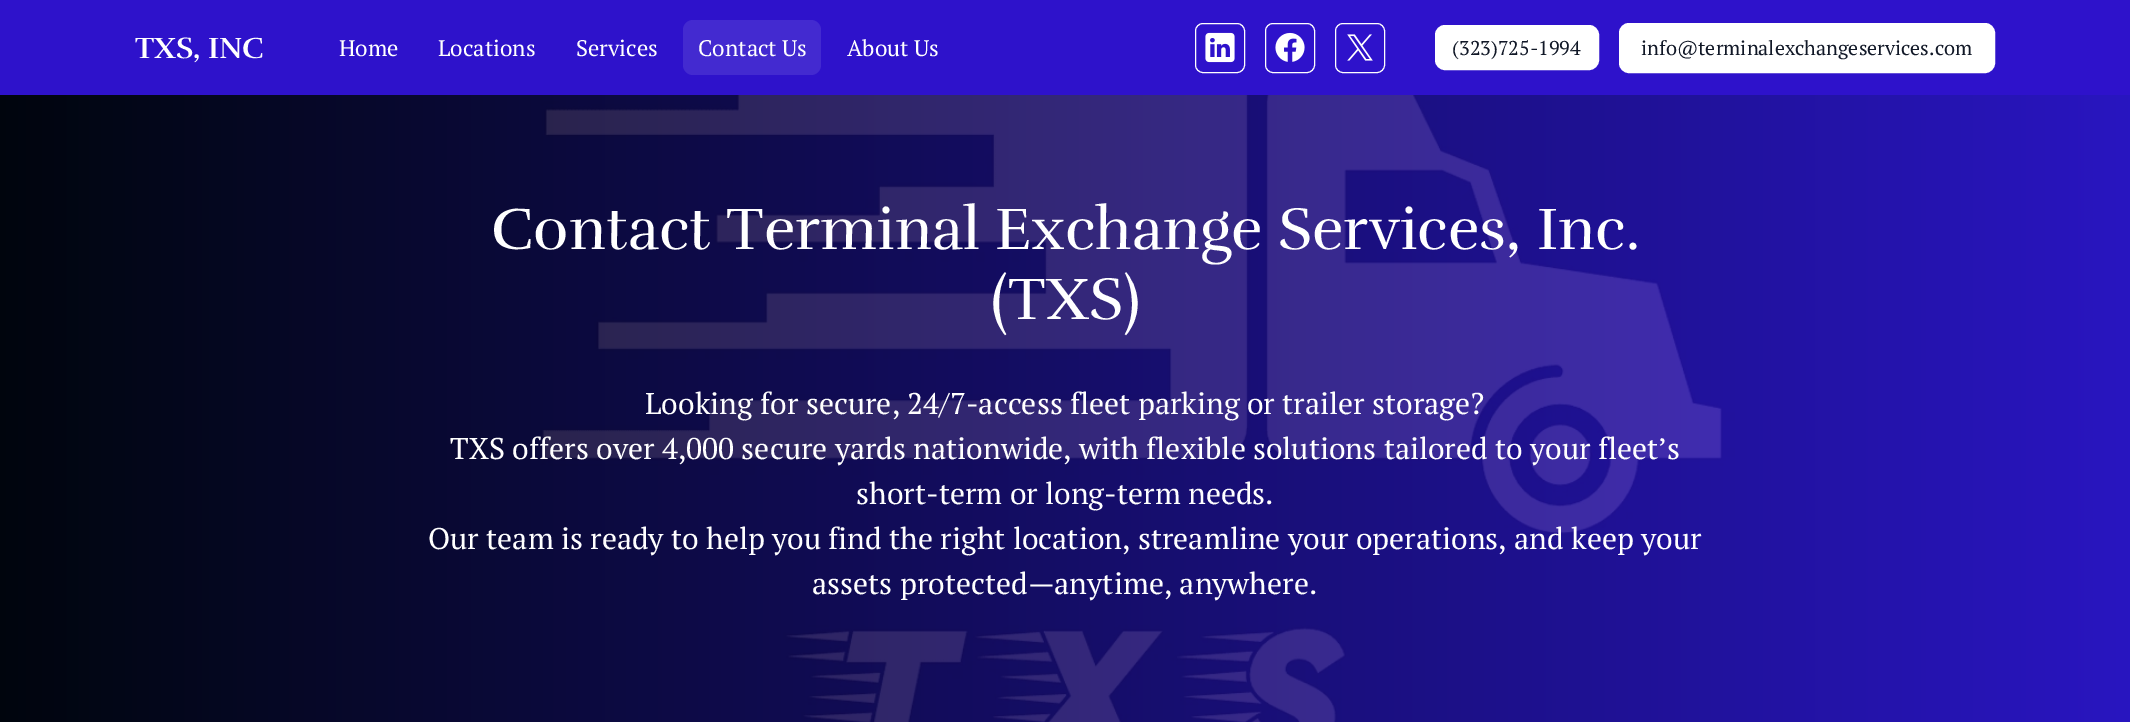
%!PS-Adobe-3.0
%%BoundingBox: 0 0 2130 722
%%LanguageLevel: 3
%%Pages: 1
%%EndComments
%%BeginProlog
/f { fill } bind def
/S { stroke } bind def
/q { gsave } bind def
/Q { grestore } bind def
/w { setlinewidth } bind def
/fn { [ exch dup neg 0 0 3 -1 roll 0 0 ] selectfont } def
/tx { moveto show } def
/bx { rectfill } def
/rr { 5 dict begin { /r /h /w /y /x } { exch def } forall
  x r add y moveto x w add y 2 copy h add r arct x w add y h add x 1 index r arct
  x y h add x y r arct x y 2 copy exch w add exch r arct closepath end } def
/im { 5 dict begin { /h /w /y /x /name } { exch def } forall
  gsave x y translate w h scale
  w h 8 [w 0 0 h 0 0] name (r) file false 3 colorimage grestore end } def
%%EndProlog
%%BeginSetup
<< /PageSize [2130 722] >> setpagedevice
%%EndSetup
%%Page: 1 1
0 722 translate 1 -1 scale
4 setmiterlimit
1 setgray
0 0 2130 722 bx
0.18 0.071 0.796 setrgbcolor
0 0 2130 95 bx
/Rufina-Bold 30 fn
1 setgray
(TXS, INC) 135 58 tx
/PTSerif-Regular 22.5 fn
(Home) 339 56 tx
(Locations) 438 56 tx
(Services) 576 56 tx
0.263 0.165 0.816 setrgbcolor
683 20 138 55 10 rr f
1 setgray
(Contact Us) 698 56 tx
(About Us) 847 56 tx
1195.5 23.5 49 49 7.5 rr S
(image0.raw) 1205 32 30 31 im
1265.5 23.5 49 49 7.5 rr S
(image1.raw) 1275 32 30 30 im
1335.5 23.5 49 49 7.5 rr S
(image2.raw) 1347 34 26 27 im
1436.5 26.5 161 42 8.5 rr q f Q
3 w
S
/PTSerif-Regular 20 fn
0.067 0.094 0.153 setrgbcolor
(\(323\)725-1994) 1452 55 tx
1 setgray
1620.5 24.5 373 47 8.5 rr q f Q
S
0.067 0.094 0.153 setrgbcolor
(info@terminalexchangeservices.com) 1641 55 tx
(image3.raw) 0 95 2130 627 im
/Rufina-Regular 60 fn
1 setgray
(Contact Terminal Exchange Services, Inc.) 491 249 tx
(\(TXS\)) 991 319 tx
/PTSerif-Regular 30 fn
(Looking for secure, 24/7-access fleet parking or trailer storage?) 645 414 tx
(TXS offers over 4,000 secure yards nationwide, with flexible solutions tailored to your fleet’s) 450 459 tx
(short-term or long-term needs.) 856 504 tx
(Our team is ready to help you find the right location, streamline your operations, and keep your) 428 549 tx
(assets protected—anytime, anywhere.) 812 594 tx
showpage
%%EOF
